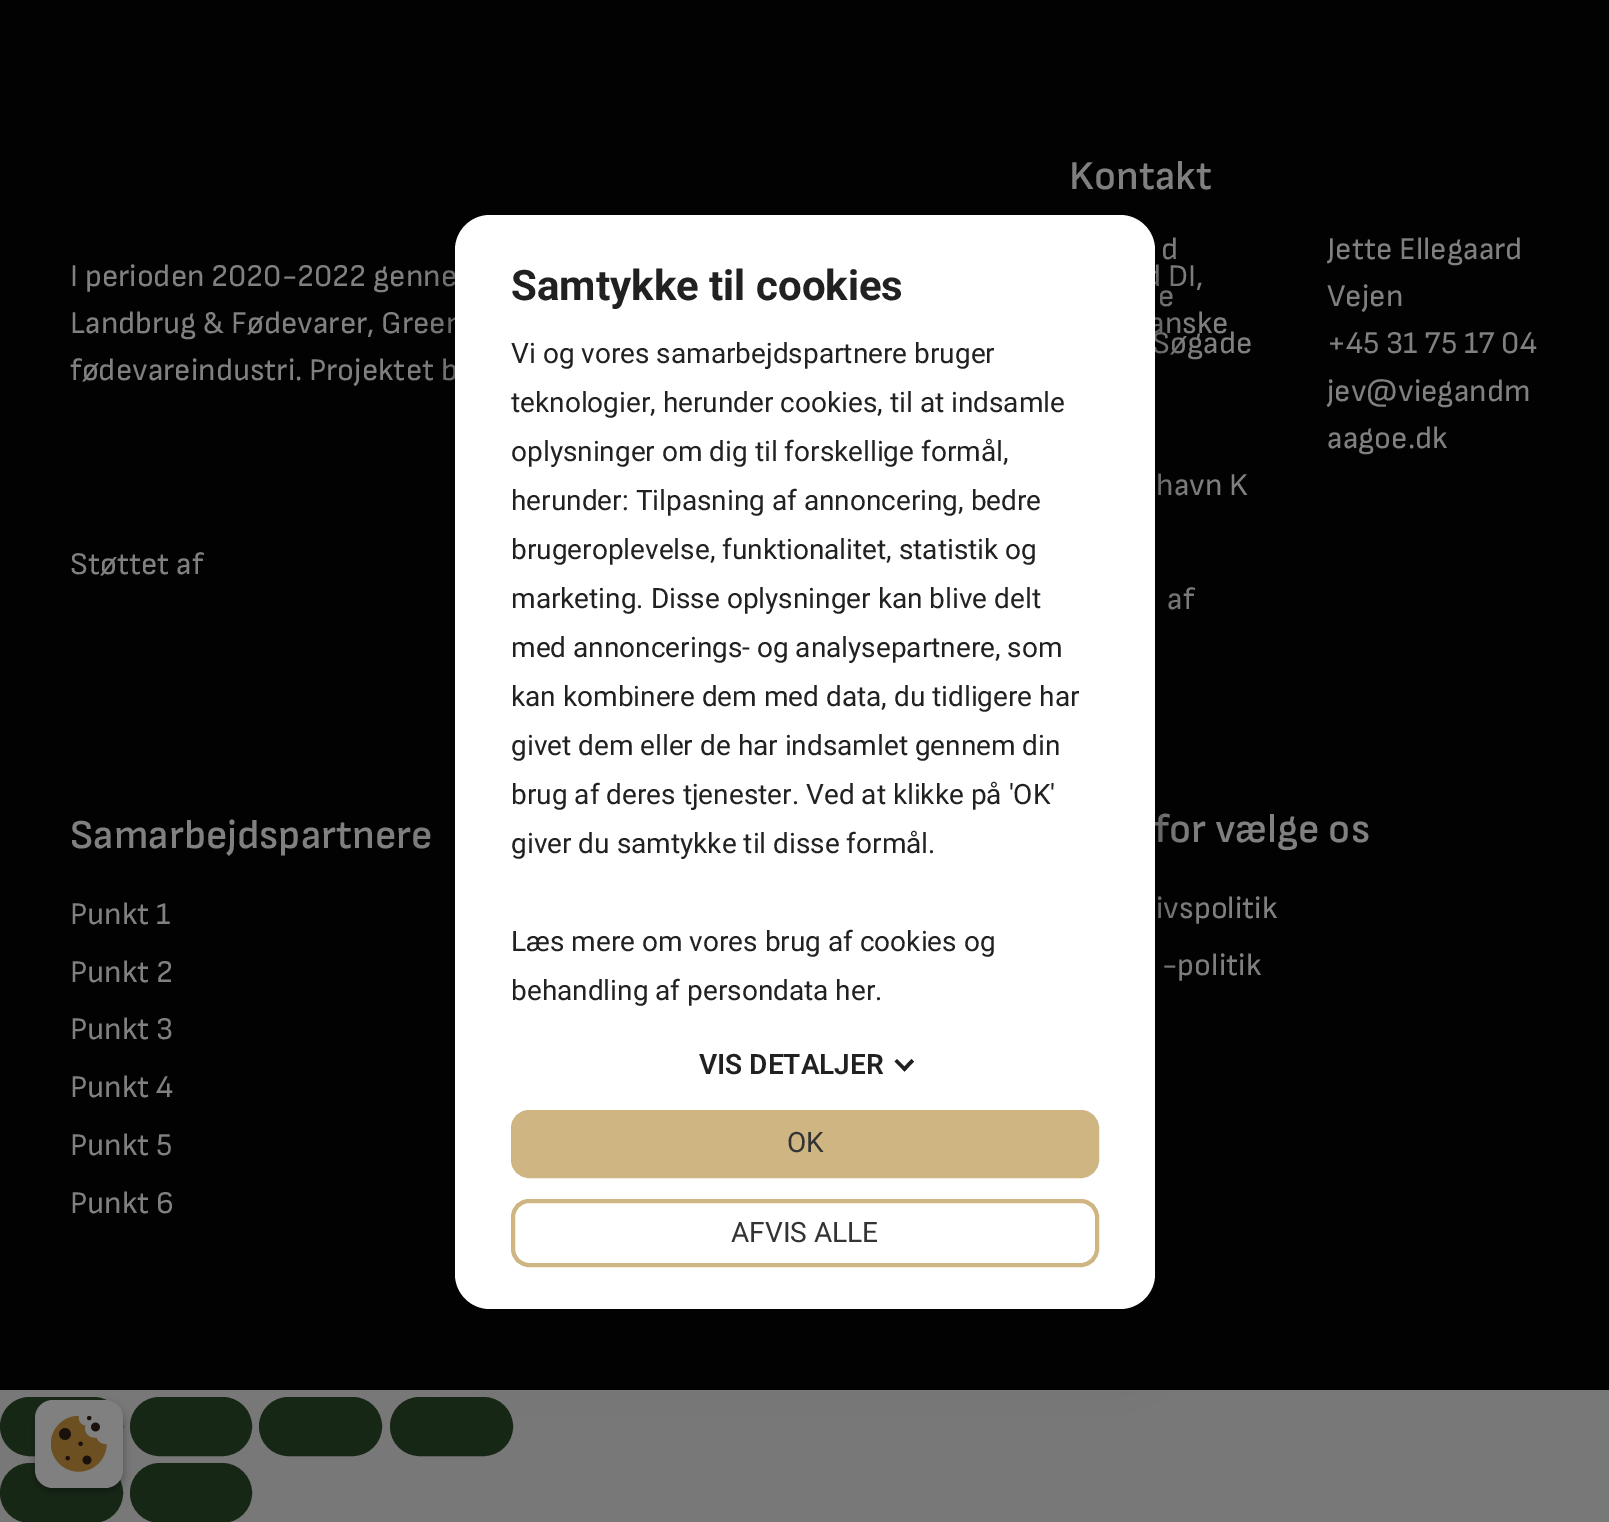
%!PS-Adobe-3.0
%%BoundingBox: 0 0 1609 1522
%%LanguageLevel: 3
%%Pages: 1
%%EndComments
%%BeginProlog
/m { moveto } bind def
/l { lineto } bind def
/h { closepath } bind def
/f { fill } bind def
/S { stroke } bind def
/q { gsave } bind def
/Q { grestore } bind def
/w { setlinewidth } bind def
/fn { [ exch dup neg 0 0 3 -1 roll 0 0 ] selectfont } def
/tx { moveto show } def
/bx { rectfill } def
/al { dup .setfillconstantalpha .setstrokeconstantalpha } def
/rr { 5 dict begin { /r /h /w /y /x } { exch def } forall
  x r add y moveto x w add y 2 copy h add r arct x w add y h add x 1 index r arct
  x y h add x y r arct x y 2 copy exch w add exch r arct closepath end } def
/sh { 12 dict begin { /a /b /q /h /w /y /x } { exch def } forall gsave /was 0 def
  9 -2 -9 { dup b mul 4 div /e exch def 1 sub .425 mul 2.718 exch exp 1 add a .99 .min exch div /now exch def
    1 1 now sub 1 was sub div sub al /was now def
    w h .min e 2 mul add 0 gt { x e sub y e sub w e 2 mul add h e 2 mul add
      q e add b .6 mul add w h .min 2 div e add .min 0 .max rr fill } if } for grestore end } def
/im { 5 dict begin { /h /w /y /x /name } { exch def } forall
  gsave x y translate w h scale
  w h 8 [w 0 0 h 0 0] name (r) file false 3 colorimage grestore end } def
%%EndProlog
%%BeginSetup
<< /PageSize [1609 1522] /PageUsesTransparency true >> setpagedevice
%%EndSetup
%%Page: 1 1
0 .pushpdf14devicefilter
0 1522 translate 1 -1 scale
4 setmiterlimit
0.471 setgray
0 0 1609 1522 bx
0.008 setgray
0 0 1609 1390 bx
/SofiaSans-Regular 31.5 fn
0.502 setgray
(I perioden 2020-2022 genne) 70 286 tx
(d DI,) 1144 286 tx
(Landbrug & Fødevarer, Green) 70 333 tx
(anske) 1149 333 tx
(fødevareindustri. Projektet b) 70 380 tx
(Støttet af) 70 574 tx
/SofiaSans-SemiBold 41 fn
(Samarbejdspartnere) 70 848 tx
/SofiaSans-Regular 31.5 fn
(Punkt 1) 70 924 tx
(Punkt 2) 70 982 tx
(Punkt 3) 70 1039 tx
(Punkt 4) 70 1097 tx
(Punkt 5) 70 1155 tx
(Punkt 6) 70 1213 tx
/SofiaSans-SemiBold 41 fn
(Kontakt) 1069 189 tx
/SofiaSans-Regular 31.5 fn
(d) 1161 259 tx
(e) 1158 306 tx
(Søgade) 1152 353 tx
(havn K) 1156 495 tx
(Jette Ellegaard) 1327 259 tx
(Vejen) 1327 306 tx
(+45 31 75 17 04) 1327 353 tx
(jev@viegandm) 1327 401 tx
(aagoe.dk) 1327 448 tx
(af) 1167 609 tx
/SofiaSans-SemiBold 41 fn
(for vælge os) 1154 842 tx
/SofiaSans-Regular 31.5 fn
(ivspolitik) 1156 918 tx
(-politik) 1162 975 tx
0 setgray
455 242 700 1093 35 10.5 0.22 sh
0.09 0.153 0.086 setrgbcolor
260 1398 121 57 28.5 rr q f Q
2 w
S
391 1398 121 57 28.5 rr q f Q
S
0 setgray
455 249 700 1093 35 33 0.3 sh
1 setgray
455 215 700 1094 35 rr f
/Roboto-Bold 42 fn
0.129 setgray
(Samtykke til cookies) 511 300 tx
/Roboto-Regular 28 fn
(Vi og vores samarbejdspartnere bruger) 511 363 tx
(teknologier, herunder cookies, til at indsamle) 511 412 tx
(oplysninger om dig til forskellige formål,) 511 461 tx
(herunder: Tilpasning af annoncering, bedre) 511 510 tx
(brugeroplevelse, funktionalitet, statistik og) 511 559 tx
(marketing. Disse oplysninger kan blive delt) 511 608 tx
(med annoncerings- og analysepartnere, som) 511 657 tx
(kan kombinere dem med data, du tidligere har) 511 706 tx
(givet dem eller de har indsamlet gennem din) 511 755 tx
(brug af deres tjenester. Ved at klikke på 'OK') 511 804 tx
(giver du samtykke til disse formål.) 511 853 tx
(Læs mere om vores brug af cookies og) 511 951 tx
(behandling af persondata her.) 511 1000 tx
/Roboto-SemiBold 28 fn
(VIS DETALJER) 699 1074 tx
911.5 1059 m 914 1061.5 l 904.5 1071.5 l 902 1069 l h f
897 1059 m 907 1069 l 904.5 1071.5 l 894.5 1061.5 l h f
0.808 0.71 0.51 setrgbcolor
513 1112 584 64 16 rr q f Q
4 w
S
/Roboto-Regular 28 fn
0.2 setgray
(OK) 787 1152 tx
0.808 0.71 0.51 setrgbcolor
513 1201 584 64 16 rr S
0.2 setgray
(AFVIS ALLE) 731 1242 tx
0.09 0.153 0.086 setrgbcolor
1 1398 121 57 28.5 rr q f Q
2 w
S
131 1398 120 57 28.5 rr q f Q
S
1 1464 121 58 29 rr q f Q
S
131 1464 120 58 29 rr q f Q
S
0 setgray
35 1405 88 88 18 5 0.23 sh
35 1405 88 88 18 5 0.16 sh
0.502 setgray
35 1400 88 88 18 rr f
(image0.raw) 51 1416 56 56 im
.poppdf14devicefilter showpage
%%EOF
